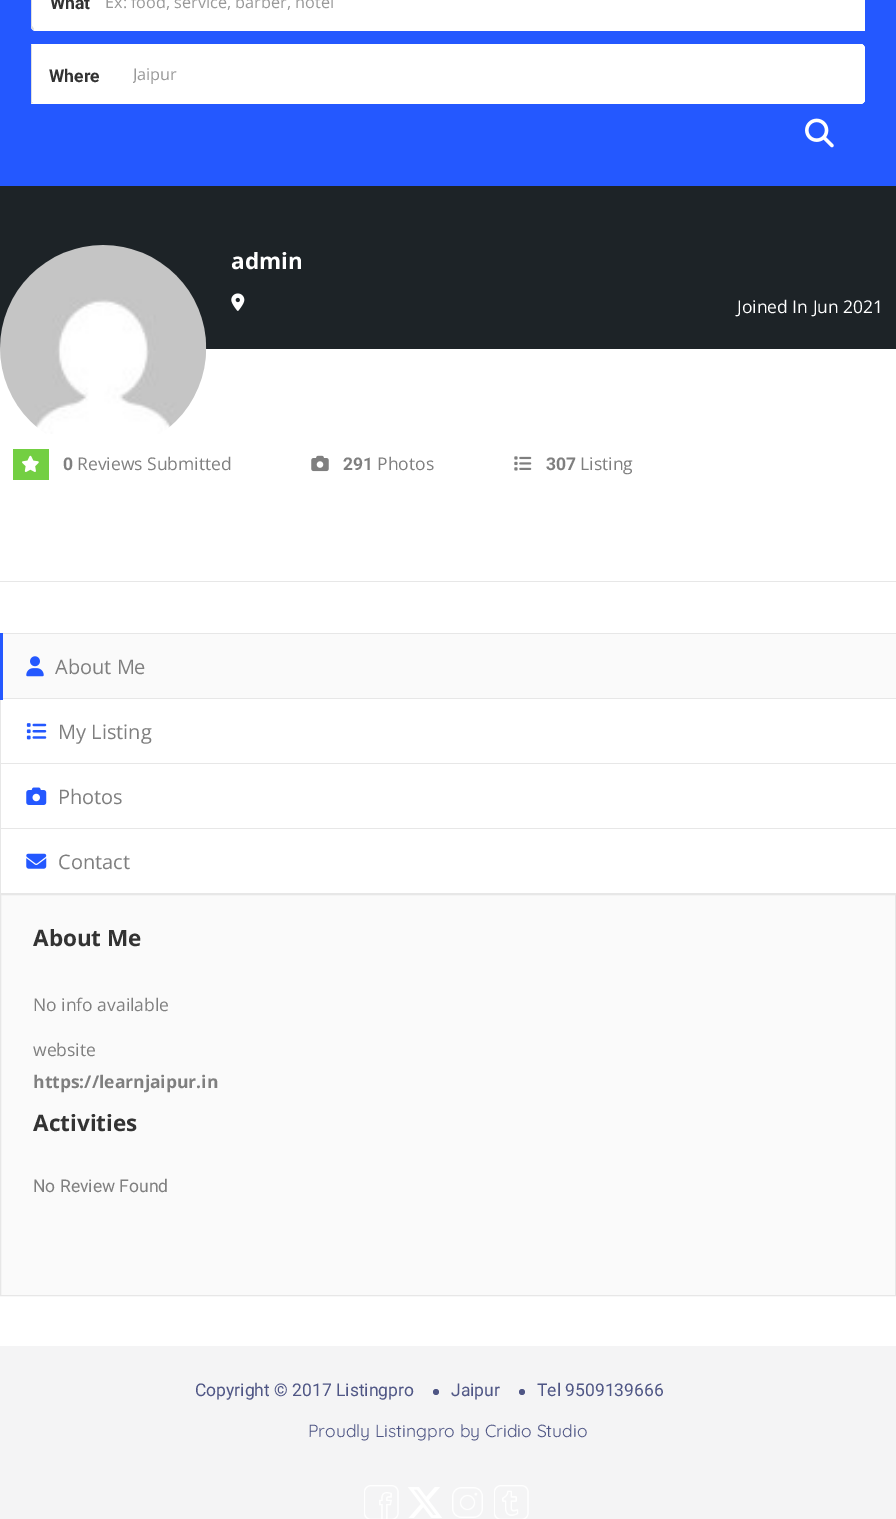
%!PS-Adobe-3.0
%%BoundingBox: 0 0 896 1519
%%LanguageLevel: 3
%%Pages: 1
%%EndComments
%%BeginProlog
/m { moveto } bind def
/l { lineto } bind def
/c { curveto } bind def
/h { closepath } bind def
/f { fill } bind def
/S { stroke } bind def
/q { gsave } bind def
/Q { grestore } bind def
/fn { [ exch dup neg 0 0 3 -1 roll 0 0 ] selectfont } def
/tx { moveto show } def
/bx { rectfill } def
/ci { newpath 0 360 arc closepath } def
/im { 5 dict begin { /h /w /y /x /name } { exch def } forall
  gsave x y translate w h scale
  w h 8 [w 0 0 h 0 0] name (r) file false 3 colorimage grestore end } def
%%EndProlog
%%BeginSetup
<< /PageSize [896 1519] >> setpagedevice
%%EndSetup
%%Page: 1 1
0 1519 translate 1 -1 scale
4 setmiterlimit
1 setgray
0 0 896 1519 bx
0.141 0.345 1 setrgbcolor
0 0 896 186 bx
1 setgray
36 -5 m 865 -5 l 865 31 l 36 31 l 33 31 31 29 31 26 c 31 0 l 31 -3 33 -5 36 -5 c h f
865 31 m 36 31 l 33 30 l 34 29 l 36 30 l 864 30 l h f
0.871 setgray
31 -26 m 32 -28 l 33 -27 l 32 -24 l 32 26 l 34 29 l 33 30 l 31 28 l h f
/Roboto-Bold 17.5 fn
0.2 setgray
(What) 50 9 tx
/OpenSans-Regular 16.25 fn
0.6 setgray
(Ex: food, service, barber, hotel) 105 8 tx
1 setgray
31 44 m 860 44 l 863 44 865 46 865 49 c 865 99 l 865 102 863 104 860 104 c 31 104 l h f
863 45 m 863 44 861 44 860 44 c 32 44 l 32 45 l 860 45 l 863 46 l h f
863 45 m 864 46 865 47 865 49 c 865 99 l 865 100 865 102 864 102 c 863 101 l 864 99 l 864 49 l 863 46 l h f
864 102 m 862 104 l 31 104 l 33 102 l 860 102 l 863 101 l h f
0.871 setgray
32 45 m 31 44 l 31 104 l 33 102 l 32 102 l h f
/Roboto-Bold 17.5 fn
0.2 setgray
(Where) 49 82 tx
1 setgray
863 45 1 58 bx
q
133 63 716 22 rectclip
/OpenSans-Regular 16.25 fn
0.6 setgray
(Jaipur) 133 80 tx
Q
(image0.raw) 805 118 29 30 im
0.114 0.137 0.153 setrgbcolor
0 186 896 163 bx
(image1.raw) 0 245 207 189 im
/OpenSans-Bold 22.5 fn
1 setgray
(admin) 231 269 tx
(image2.raw) 231 293 14 18 im
/OpenSans-Regular 17.5 fn
(Joined In Jun 2021) 737 313 tx
0.906 setgray
0 581 896 1 bx
0.451 0.812 0.259 setrgbcolor
13 449 36 31 bx
(image3.raw) 22 455 17 17 im
/Roboto-Bold 17.5 fn
0.498 setgray
(0) 63 470 tx
/OpenSans-Regular 17.5 fn
(Reviews Submitted) 77 470 tx
(image4.raw) 311 455 18 17 im
/Roboto-Bold 17.5 fn
(291) 343 470 tx
/OpenSans-Regular 17.5 fn
(Photos) 377 470 tx
(image5.raw) 514 456 18 15 im
/Roboto-Bold 17.5 fn
(307) 546 470 tx
/OpenSans-Regular 17.5 fn
(Listing) 580 470 tx
0.98 setgray
3 634 893 64 bx
0.906 setgray
0 633 896 1 bx
0 698 896 1 bx
0 698 1 65 bx
0.141 0.345 1 setrgbcolor
0 633 3 67 bx
(image6.raw) 26 656 18 21 im
/OpenSans-Regular 20 fn
0.498 setgray
(About Me) 55 674 tx
(image7.raw) 26 723 21 17 im
(My Listing) 58 739 tx
0.906 setgray
0 763 896 1 bx
0 763 1 65 bx
(image8.raw) 26 787 21 18 im
0.498 setgray
(Photos) 58 804 tx
0.906 setgray
0 828 896 1 bx
0 893 896 1 bx
0 828 1 66 bx
(image9.raw) 26 853 21 16 im
0.498 setgray
(Contact) 58 869 tx
0.98 setgray
0.5 894.5 m 895.5 894.5 l 895.5 1295.5 l 0.5 1295.5 l h q f Q
0.906 setgray
S
/OpenSans-Bold 22.5 fn
0.2 setgray
(About Me) 33 946 tx
/OpenSans-Regular 17.5 fn
0.498 setgray
(No info available) 33 1011 tx
(website) 33 1056 tx
/OpenSans-Bold 17.5 fn
(https://learnjaipur.in) 33 1088 tx
/OpenSans-Bold 22.5 fn
0.2 setgray
(Activities) 33 1131 tx
/Roboto-Regular 17.5 fn
0.498 setgray
(No Review Found) 33 1192 tx
0.957 0.957 0.961 setrgbcolor
0 1346 896 173 bx
0.31 0.337 0.522 setrgbcolor
(Copyright © 2017 Listingpro) 195 1396 tx
436 1392 3 ci f
(Jaipur) 451 1396 tx
522 1392 3 ci f
(Tel 9509139666) 537 1396 tx
/Quicksand-Regular 17.5 fn
(Proudly Listingpro by Cridio Studio) 308 1437 tx
(image10.raw) 364 1485 35 34 im
(image11.raw) 408 1487 34 31 im
(image12.raw) 452 1487 31 31 im
(image13.raw) 494 1485 35 34 im
showpage
%%EOF
